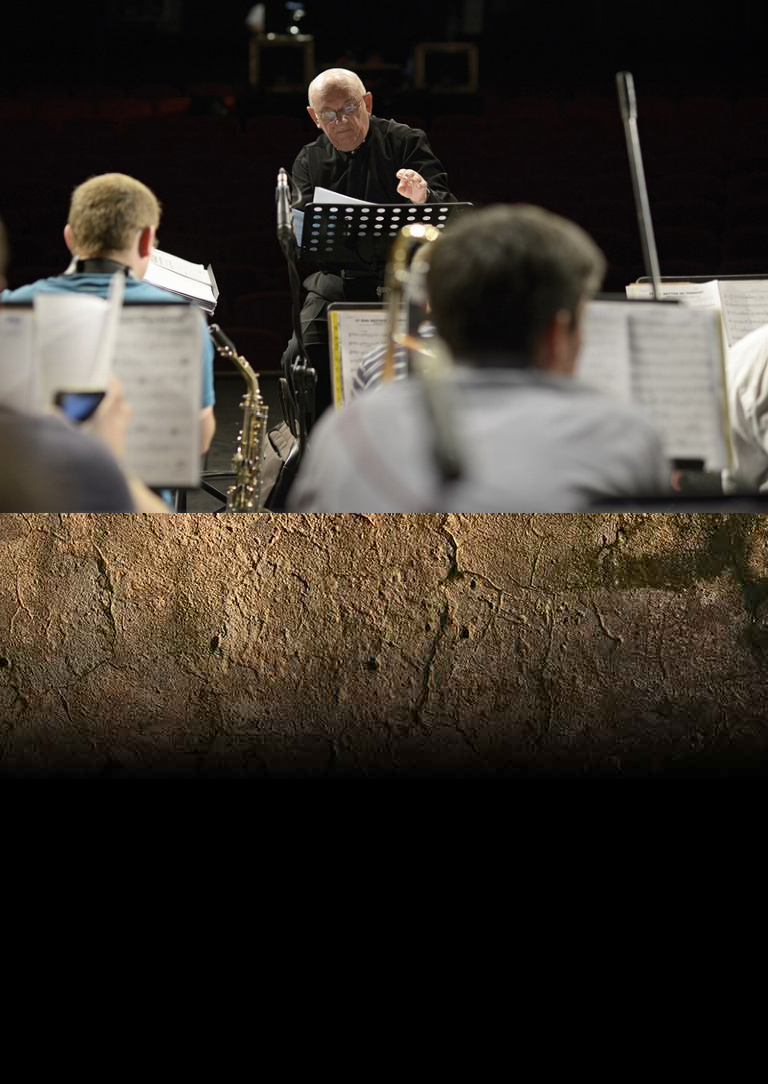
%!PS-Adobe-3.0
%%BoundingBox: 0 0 768 1084
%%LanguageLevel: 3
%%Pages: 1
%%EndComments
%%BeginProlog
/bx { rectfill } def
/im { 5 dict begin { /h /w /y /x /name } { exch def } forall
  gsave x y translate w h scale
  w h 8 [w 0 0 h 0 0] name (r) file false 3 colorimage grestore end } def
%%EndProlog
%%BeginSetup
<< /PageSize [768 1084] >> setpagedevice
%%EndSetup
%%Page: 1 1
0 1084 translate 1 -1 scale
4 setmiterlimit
0 setgray
0 0 768 1084 bx
(image0.raw) 0 513 768 266 im
(image1.raw) 0 0 768 513 im
showpage
%%EOF
